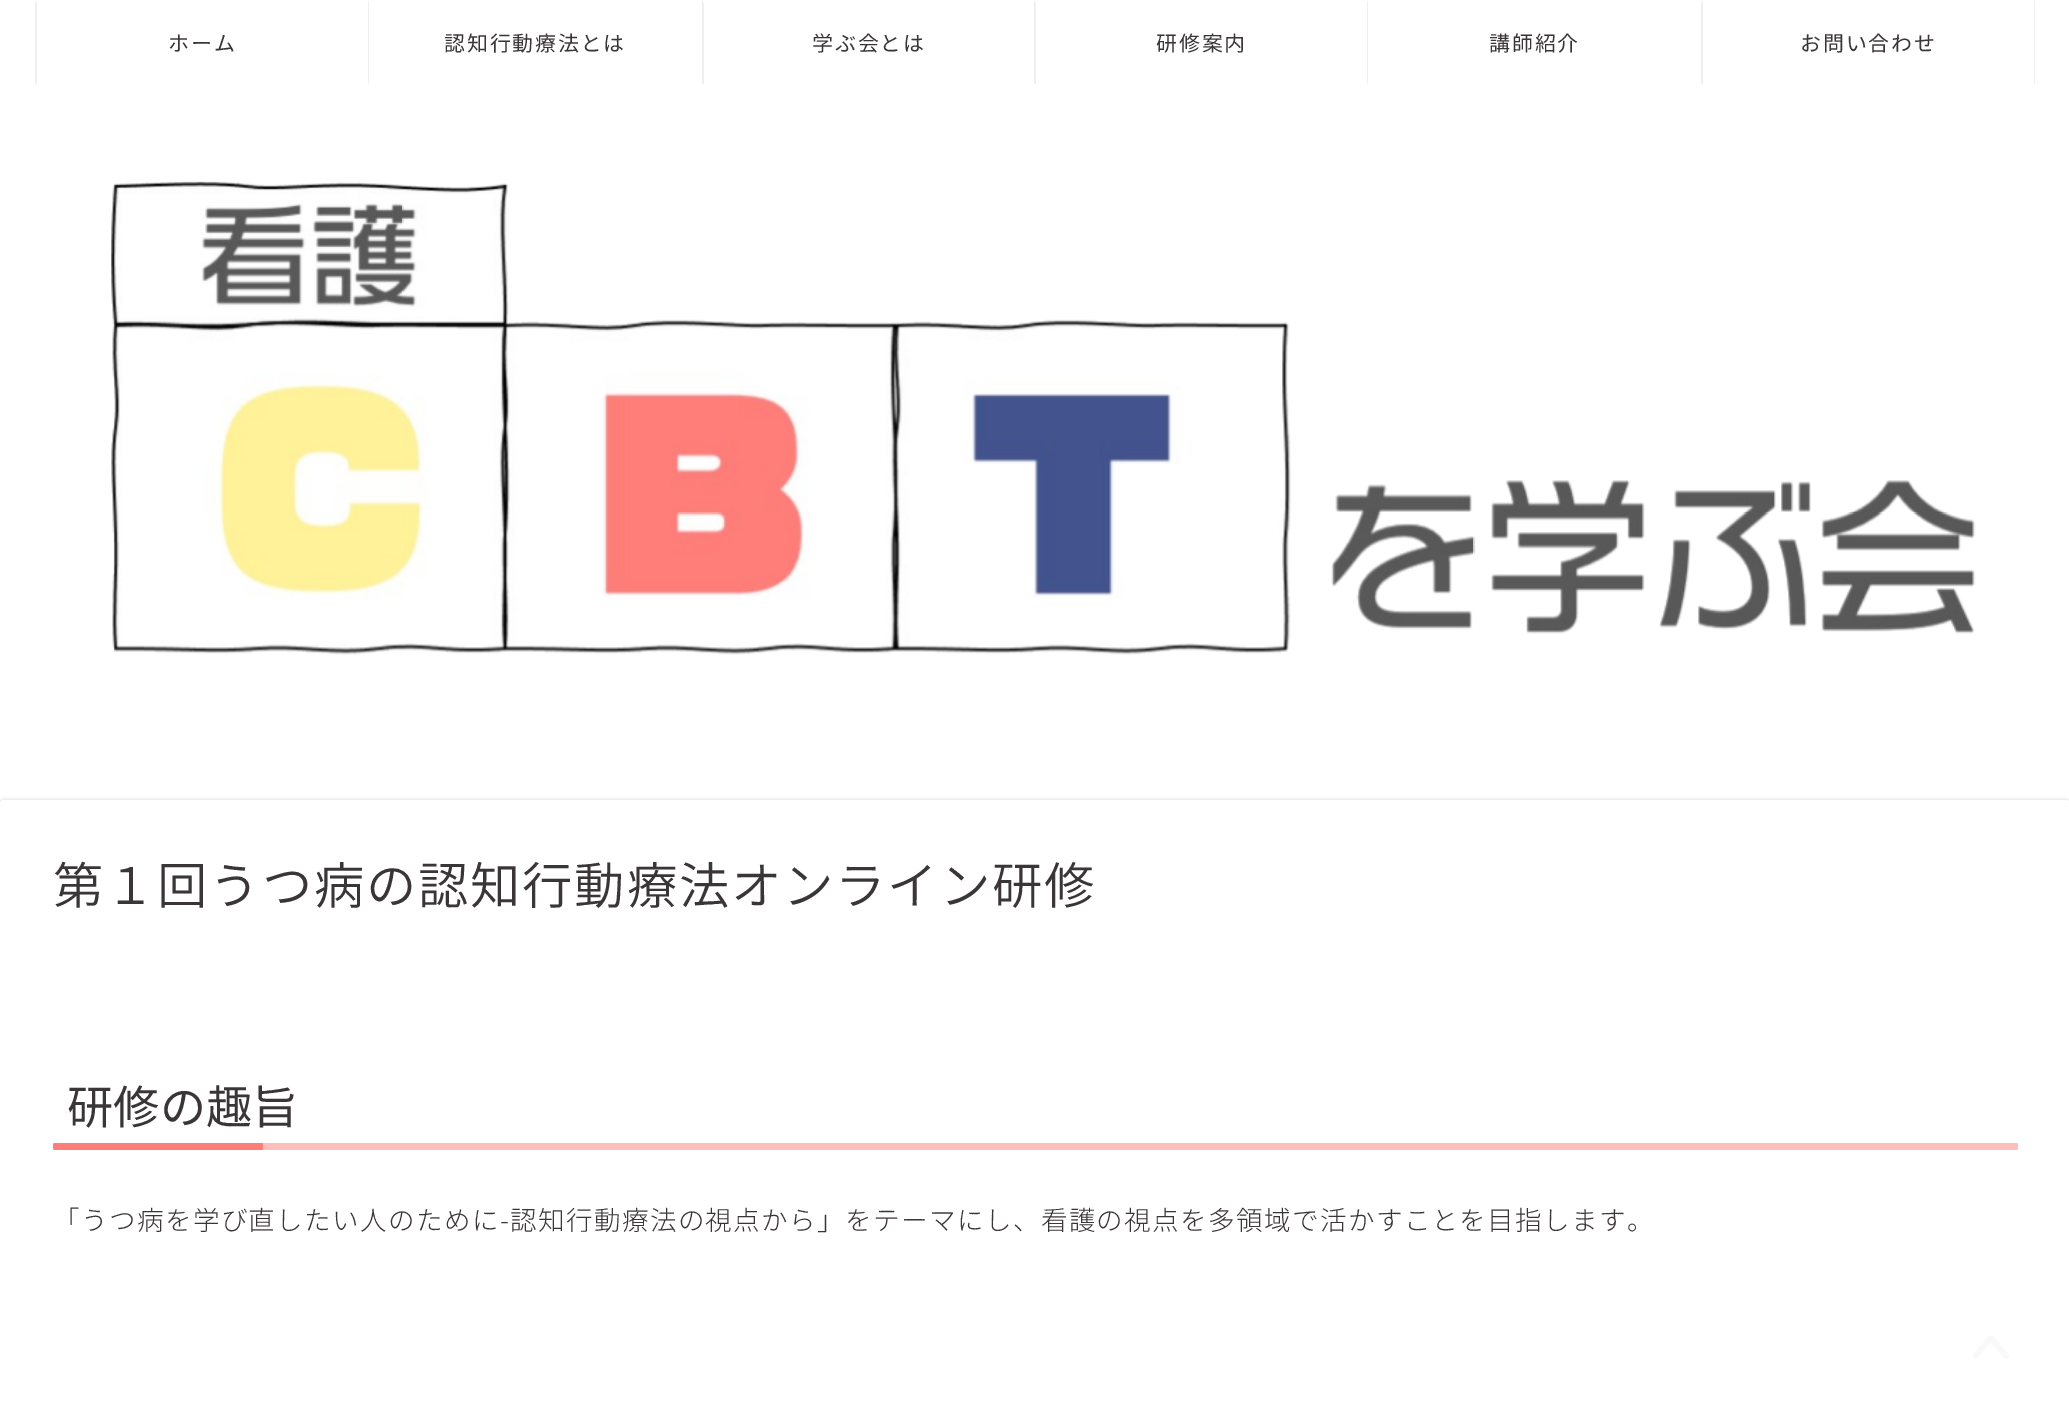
%!PS-Adobe-3.0
%%BoundingBox: 0 0 2069 1427
%%LanguageLevel: 3
%%Pages: 1
%%EndComments
%%BeginProlog
/m { moveto } bind def
/l { lineto } bind def
/c { curveto } bind def
/h { closepath } bind def
/f { fill } bind def
/fn { [ exch dup neg 0 0 3 -1 roll 0 0 ] selectfont } def
/tx { moveto show } def
/bx { rectfill } def
/al { dup .setfillconstantalpha .setstrokeconstantalpha } def
/rr { 5 dict begin { /r /h /w /y /x } { exch def } forall
  x r add y moveto x w add y 2 copy h add r arct x w add y h add x 1 index r arct
  x y h add x y r arct x y 2 copy exch w add exch r arct closepath end } def
/sh { 12 dict begin { /a /b /q /h /w /y /x } { exch def } forall gsave /was 0 def
  9 -2 -9 { dup b mul 4 div /e exch def 1 sub .425 mul 2.718 exch exp 1 add a .99 .min exch div /now exch def
    1 1 now sub 1 was sub div sub al /was now def
    w h .min e 2 mul add 0 gt { x e sub y e sub w e 2 mul add h e 2 mul add
      q e add b .6 mul add w h .min 2 div e add .min 0 .max rr fill } if } for grestore end } def
/im { 5 dict begin { /h /w /y /x /name } { exch def } forall
  gsave x y translate w h scale
  w h 8 [w 0 0 h 0 0] name (r) file false 3 colorimage grestore end } def
%%EndProlog
%%BeginSetup
<< /PageSize [2069 1427] /PageUsesTransparency true >> setpagedevice
%%EndSetup
%%Page: 1 1
0 .pushpdf14devicefilter
0 1427 translate 1 -1 scale
4 setmiterlimit
1 setgray
0 0 2069 1427 bx
0.937 setgray
35 84 m 35 0 l 37 4 l 37 84 l h f
/NotoSansJP-Regular 21 fn
0.227 0.208 0.212 setrgbcolor
168 51 m 1.75 0 (ホーム) ashow
0.937 setgray
368 84 m 368 0 l 369 4 l 369 84 l h f
0.227 0.208 0.212 setrgbcolor
444 51 m 1.75 0 (認知行動療法とは) ashow
0.937 setgray
702 84 m 702 0 l 704 4 l 704 84 l h f
0.227 0.208 0.212 setrgbcolor
812 51 m 1.75 0 (学ぶ会とは) ashow
0.937 setgray
1034 84 m 1034 0 l 1036 4 l 1036 84 l h f
0.227 0.208 0.212 setrgbcolor
1156 51 m 1.75 0 (研修案内) ashow
0.937 setgray
1367 84 m 1367 0 l 1368 4 l 1368 84 l h f
0.227 0.208 0.212 setrgbcolor
1489 51 m 1.75 0 (講師紹介) ashow
0.937 setgray
2035 0 m 2035 84 l 2034 84 l 2034 4 l h f
1701 84 m 1701 0 l 1703 4 l 1703 84 l h f
0.227 0.208 0.212 setrgbcolor
1800 51 m 1.75 0 (お問い合わせ) ashow
(image0.raw) 110 181 1866 474 im
0 setgray
0 800 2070 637 4 2 0.18 sh
1 setgray
0 800 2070 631 4 rr f
/NotoSansJP-Light 50.4 fn
0.227 0.208 0.212 setrgbcolor
53 904 m 1.75 0 (第１回うつ病の認知行動療法オンライン研修) ashow
/NotoSansJP-Regular 46.25 fn
(研修の趣旨) 67 1124 tx
0.996 0.749 0.737 setrgbcolor
53 1143 1965 7 2 rr f
0.992 0.494 0.471 setrgbcolor
55 1143 m 263 1143 l 263 1150 l 55 1150 l 54 1150 53 1149 53 1148 c 53 1145 l 53 1144 54 1143 55 1143 c h f
/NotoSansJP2-Light 26.6 fn
0.227 0.208 0.212 setrgbcolor
53 1230 m 1.33 0 (「うつ病を学び直したい人のために-認知行動療法の視点から」をテーマにし、看護の視点を多領域で活かすことを目指します。) ashow
(image1.raw) 1973 1336 36 23 im
.poppdf14devicefilter showpage
%%EOF
